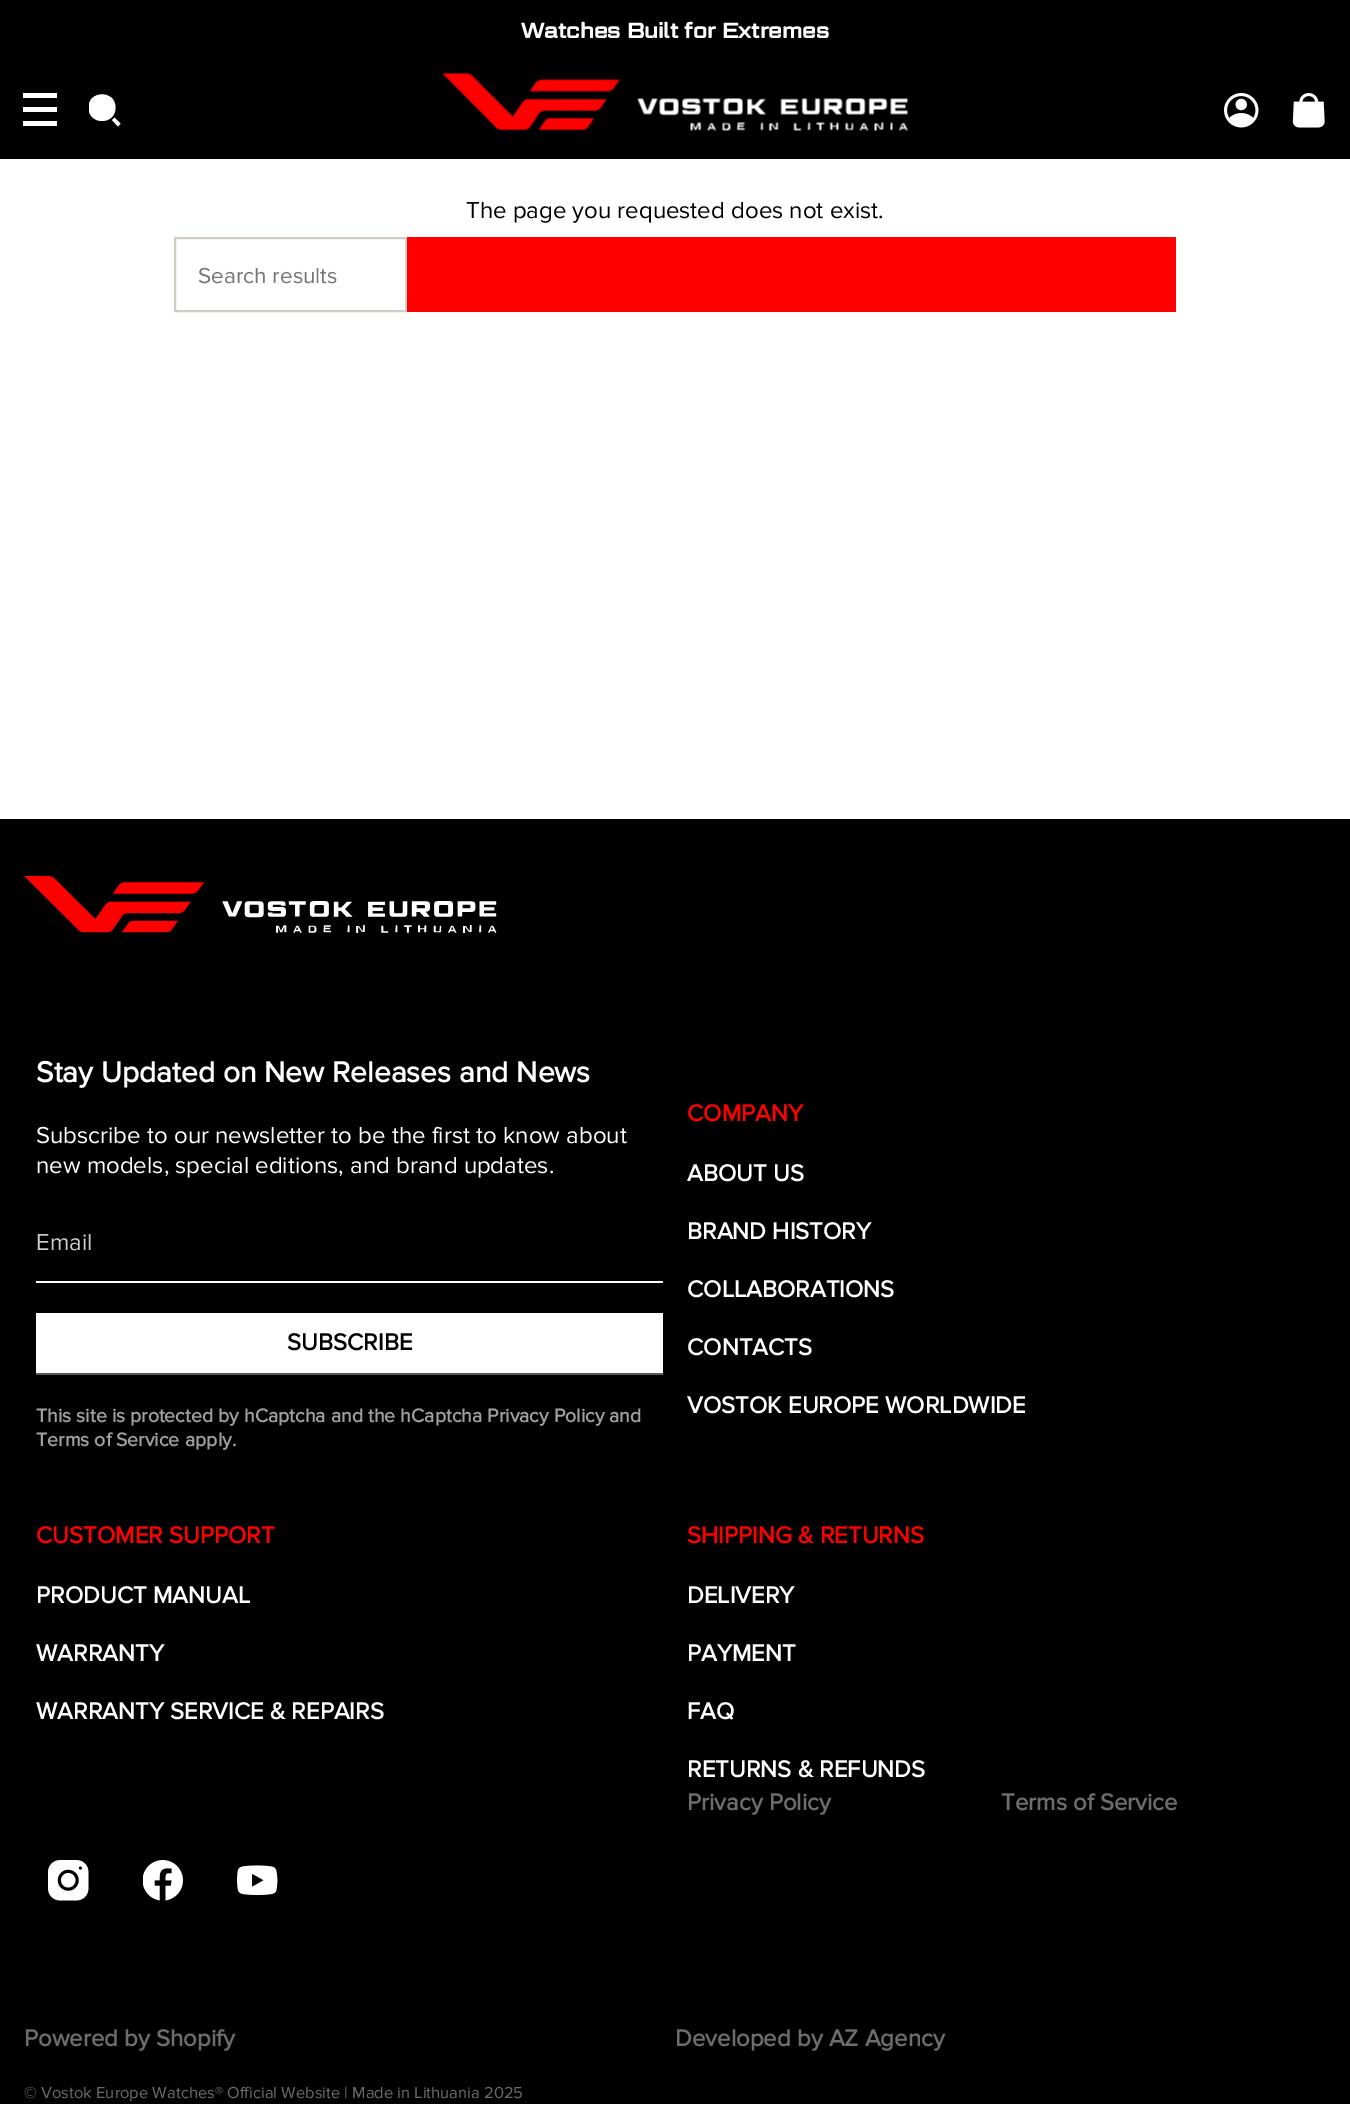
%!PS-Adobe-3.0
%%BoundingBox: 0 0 1350 2104
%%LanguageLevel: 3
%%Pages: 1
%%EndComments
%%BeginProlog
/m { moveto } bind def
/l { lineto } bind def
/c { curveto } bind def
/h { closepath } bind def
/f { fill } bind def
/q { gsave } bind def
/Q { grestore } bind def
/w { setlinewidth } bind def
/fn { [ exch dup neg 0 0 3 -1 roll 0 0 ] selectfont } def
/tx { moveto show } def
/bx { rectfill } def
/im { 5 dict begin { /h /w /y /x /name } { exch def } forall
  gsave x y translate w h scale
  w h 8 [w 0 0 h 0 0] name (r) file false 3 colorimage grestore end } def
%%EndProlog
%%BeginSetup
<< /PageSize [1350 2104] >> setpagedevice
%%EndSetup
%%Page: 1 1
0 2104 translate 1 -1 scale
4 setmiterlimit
1 setgray
0 0 1350 2104 bx
0 setgray
0 0 1350 159 bx
/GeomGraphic-Bold 21 fn
1 setgray
(Watches Built for Extremes) 521 38 tx
q
23 93 34 33 rectclip
22.5 93 m 22.5 98 l 57 98 l 57 93 l h 22.5 112 m 57 112 l 57 107 l 22.5 107 l h 22.5 126 m 57 126 l 57 121 l 22.5 121 l h f
Q
q
89 93 34 35 rectclip
115.5 107.5 m 115.5 125.5 88.5 125.5 88.5 107.5 c 88.5 90 115.5 90 115.5 107.5 c h f
Q
120.5 123.5 m 118 126.5 l 112 120 l 114.5 117.5 l h f
(image0.raw) 442 73 466 58 im
(image1.raw) 1224 93 35 35 im
(image2.raw) 1292 93 33 35 im
/ProximaNova-Regular 24 fn
0 setgray
(The page you requested does not exist.) 466 218 tx
0.82 0.804 0.769 setrgbcolor
2 w
175 238 231 73 rectstroke
/ProximaNova-Regular 22.5 fn
0.459 setgray
(Search results) 198 283 tx
1 0 0 setrgbcolor
407 237 769 75 bx
0 setgray
0 819 1350 1285 bx
(image3.raw) 24 876 473 57 im
/ProximaNova-Bold 30 fn
1 setgray
(Stay Updated on New Releases and News) 36 1082 tx
/ProximaNova-Regular 24 fn
(Subscribe to our newsletter to be the first to know about) 36 1143 tx
(new models, special editions, and brand updates.) 36 1173 tx
0.349 setgray
36 1373 627 2 bx
1 setgray
36 1281 627 2 bx
0.8 setgray
(Email) 36 1250 tx
1 setgray
36 1313 627 60 bx
/ProximaNova-Bold 24 fn
0 setgray
(SUBSCRIBE) 287 1350 tx
/ProximaNova-Bold 19.5 fn
0.624 setgray
(This site is protected by hCaptcha and the hCaptcha Privacy Policy) 36 1422 tx
(and) 609 1422 tx
(Terms of Service) 36 1446 tx
(apply.) 185 1446 tx
/ProximaNova-Bold 24 fn
1 0 0 setrgbcolor
(COMPANY) 687 1121 tx
1 setgray
(ABOUT US) 687 1181 tx
(BRAND HISTORY) 687 1239 tx
(COLLABORATIONS) 687 1297 tx
(CONTACTS) 687 1355 tx
(VOSTOK EUROPE WORLDWIDE) 687 1413 tx
1 0 0 setrgbcolor
(CUSTOMER SUPPORT) 36 1543 tx
1 setgray
(PRODUCT MANUAL) 36 1603 tx
(WARRANTY) 36 1661 tx
(WARRANTY SERVICE & REPAIRS) 36 1719 tx
1 0 0 setrgbcolor
(SHIPPING & RETURNS) 687 1543 tx
1 setgray
(DELIVERY) 687 1603 tx
(PAYMENT) 687 1661 tx
(FAQ) 687 1719 tx
(RETURNS & REFUNDS) 687 1777 tx
0.427 setgray
(Privacy Policy) 687 1810 tx
(Terms of Service) 1001 1810 tx
(image4.raw) 48 1860 41 41 im
(image5.raw) 143 1860 40 41 im
(image6.raw) 237 1865 41 31 im
(Powered by Shopify) 24 2046 tx
(Developed by AZ Agency) 675 2046 tx
/ProximaNova-Regular 16.5 fn
(© Vostok Europe Watches® Official Website | Made in Lithuania) 24 2098 tx
(2025) 484 2098 tx
showpage
%%EOF
